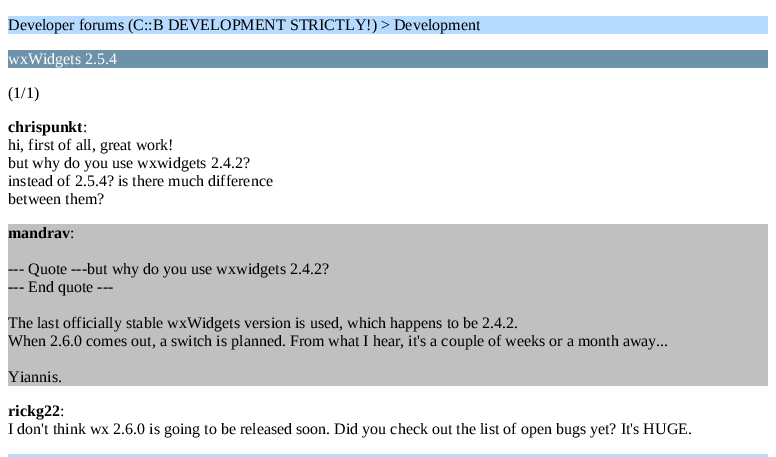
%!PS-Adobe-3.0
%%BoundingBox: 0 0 776 457
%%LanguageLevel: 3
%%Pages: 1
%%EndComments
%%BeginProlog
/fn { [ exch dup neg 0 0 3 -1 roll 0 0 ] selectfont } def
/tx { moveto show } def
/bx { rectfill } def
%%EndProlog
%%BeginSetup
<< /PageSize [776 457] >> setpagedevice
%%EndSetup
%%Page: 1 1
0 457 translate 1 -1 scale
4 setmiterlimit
1 setgray
0 0 776 457 bx
0.714 0.859 1 setrgbcolor
8 16 760 18 bx
/LiberationSerif-Regular 16 fn
0 setgray
(Developer forums \(C::B DEVELOPMENT STRICTLY!\) > Development) 8 30 tx
0.427 0.573 0.667 setrgbcolor
8 50 760 18 bx
1 setgray
(wxWidgets 2.5.4) 8 64 tx
0 setgray
(\(1/1\)) 8 98 tx
/LiberationSerif-Bold 16 fn
(chrispunkt) 8 132 tx
/LiberationSerif-Regular 16 fn
(:) 83 132 tx
(hi, first of all, great work!) 8 150 tx
(but why do you use wxwidgets 2.4.2?) 8 168 tx
(instead of 2.5.4? is there much difference) 8 186 tx
(between them?) 8 204 tx
0.753 setgray
8 224 760 162 bx
/LiberationSerif-Bold 16 fn
0 setgray
(mandrav) 8 238 tx
/LiberationSerif-Regular 16 fn
(:) 70 238 tx
(--- Quote ---but why do you use wxwidgets 2.4.2?) 8 274 tx
(--- End quote ---) 8 292 tx
(The last officially stable wxWidgets version is used, which happens to be 2.4.2.) 8 328 tx
(When 2.6.0 comes out, a switch is planned. From what I hear, it's a couple of weeks or a month away...) 8 346 tx
(Yiannis.) 8 382 tx
/LiberationSerif-Bold 16 fn
(rickg22) 8 416 tx
/LiberationSerif-Regular 16 fn
(:) 60 416 tx
(I don't think wx 2.6.0 is going to be released soon. Did you check out the list of open bugs yet? It's HUGE.) 8 434 tx
0.714 0.859 1 setrgbcolor
8 454 760 3 bx
showpage
%%EOF
